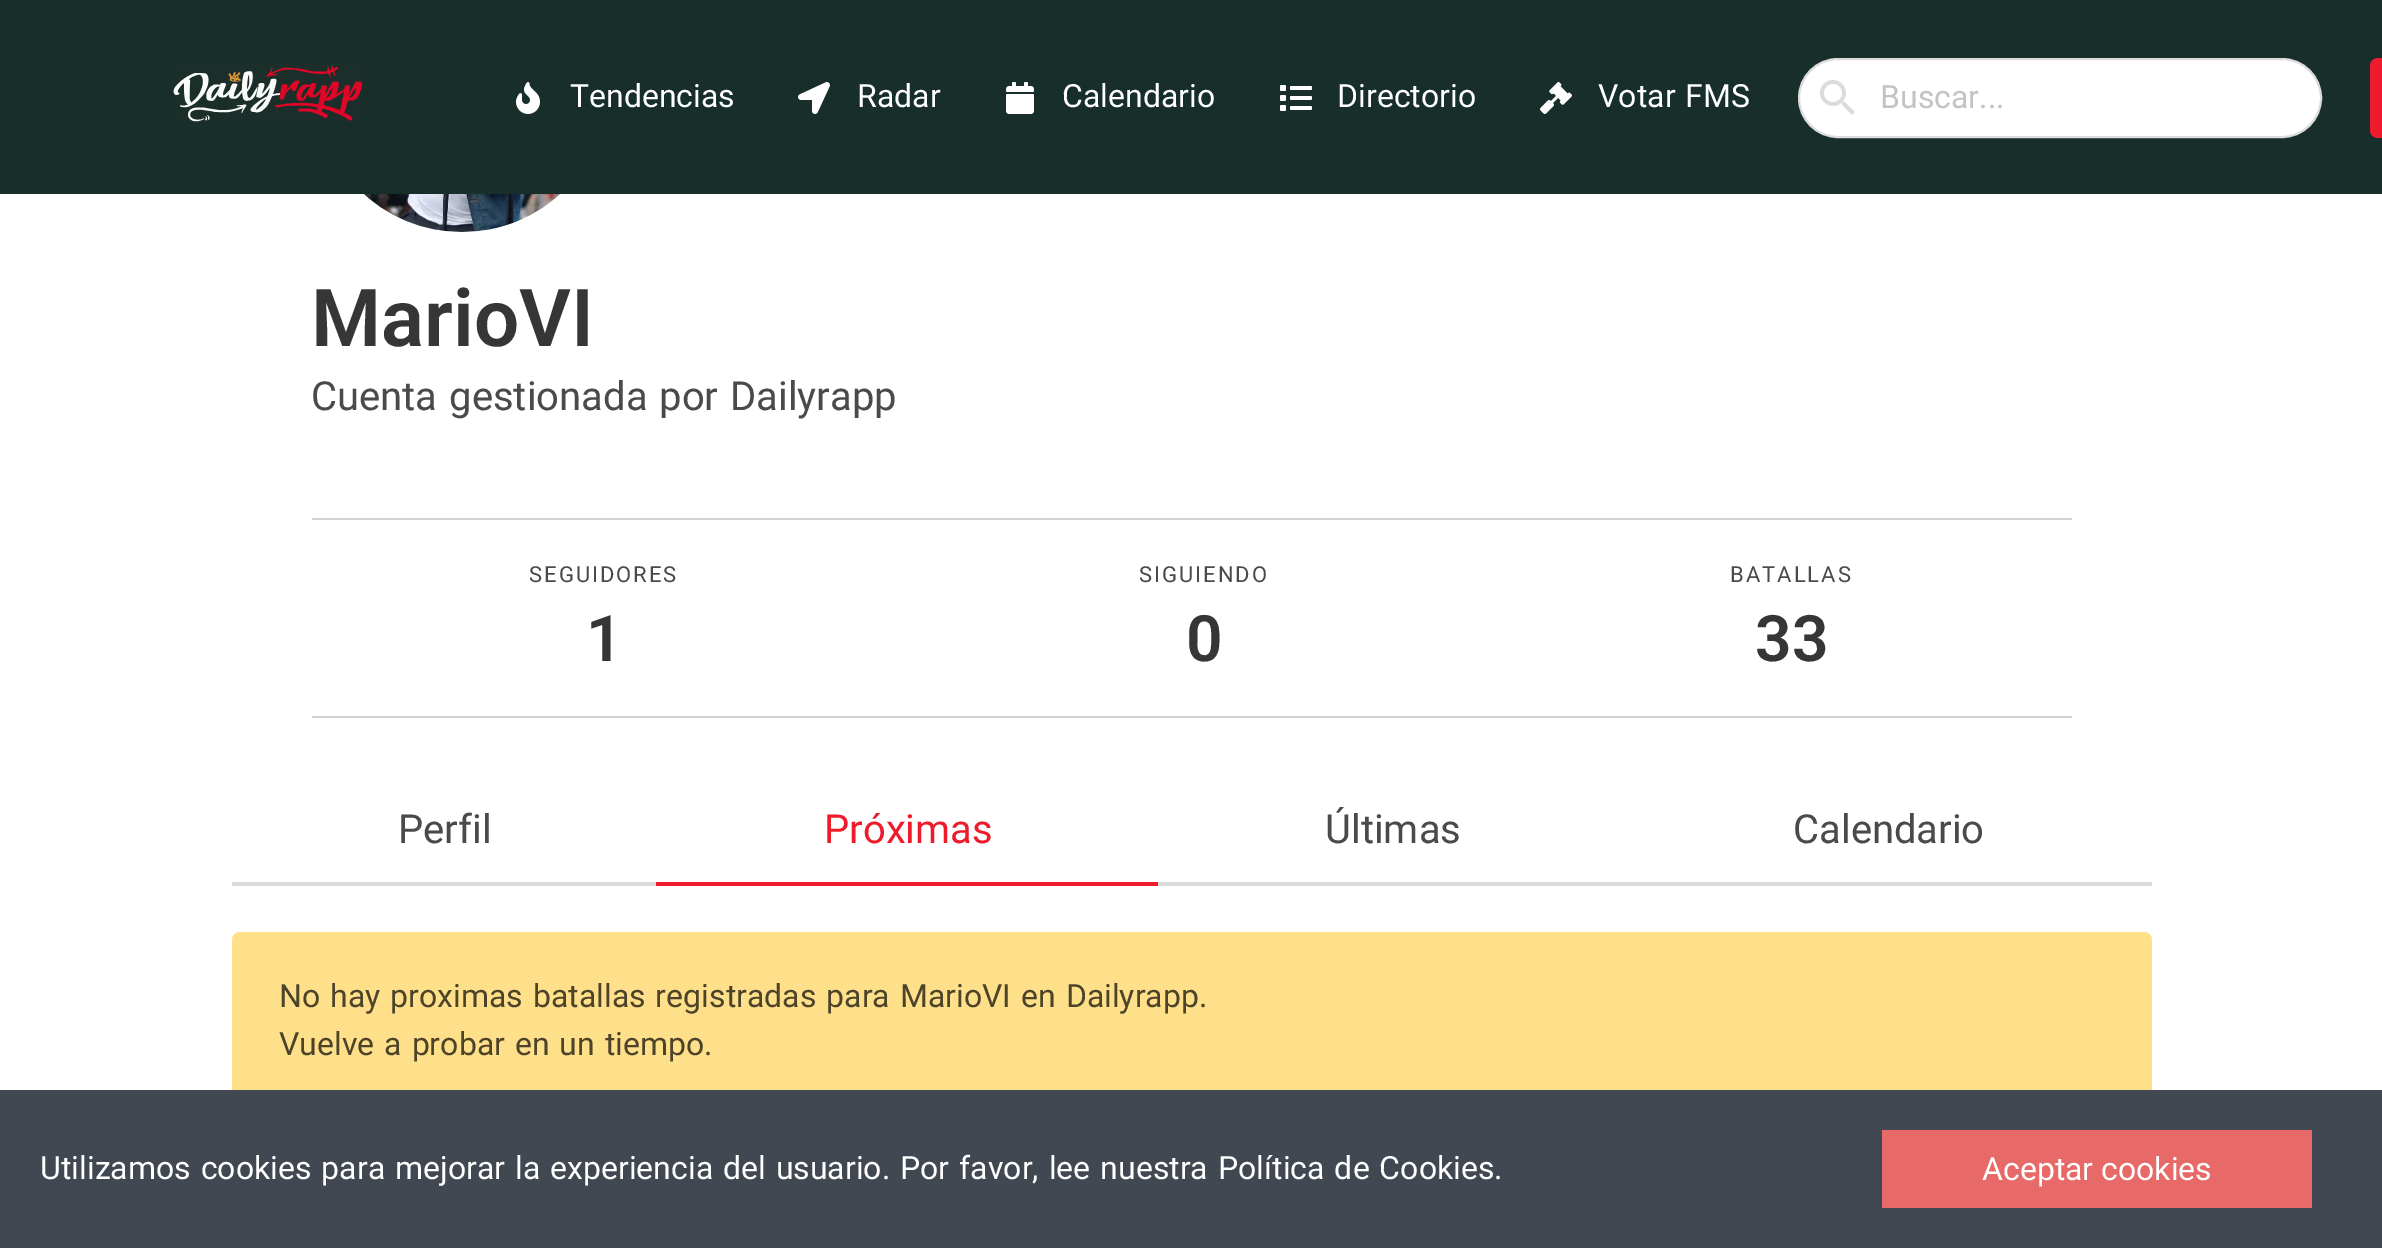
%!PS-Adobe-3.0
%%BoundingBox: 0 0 2382 1248
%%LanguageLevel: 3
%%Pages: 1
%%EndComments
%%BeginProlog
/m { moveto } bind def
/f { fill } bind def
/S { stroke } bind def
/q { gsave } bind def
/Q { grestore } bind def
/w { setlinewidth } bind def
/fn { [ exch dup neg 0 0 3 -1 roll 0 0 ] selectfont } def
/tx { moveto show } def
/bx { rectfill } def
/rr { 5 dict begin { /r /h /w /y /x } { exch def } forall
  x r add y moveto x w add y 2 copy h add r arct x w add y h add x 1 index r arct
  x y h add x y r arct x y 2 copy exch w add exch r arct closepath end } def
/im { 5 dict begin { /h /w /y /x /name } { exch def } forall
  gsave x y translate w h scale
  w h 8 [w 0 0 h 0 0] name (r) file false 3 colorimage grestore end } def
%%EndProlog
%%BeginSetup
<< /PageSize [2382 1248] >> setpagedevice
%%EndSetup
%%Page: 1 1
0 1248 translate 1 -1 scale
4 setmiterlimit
1 setgray
0 0 2382 1248 bx
0.094 0.18 0.165 setrgbcolor
0 0 2382 194 bx
(image0.raw) 173 64 190 58 im
(image1.raw) 516 82 24 32 im
/Roboto-Regular 32 fn
1 setgray
(Tendencias) 570 107 tx
(image2.raw) 798 82 32 32 im
(Radar) 857 107 tx
(image3.raw) 1006 82 28 32 im
(Calendario) 1062 107 tx
(image4.raw) 1280 85 32 26 im
(Directorio) 1337 107 tx
(image5.raw) 1540 82 32 32 im
1598 107 m 2 0 32 (Votar FMS) widthshow
1799 59 522 78 39 rr q f Q
0.859 setgray
2 w
S
(image6.raw) 1820 80 35 35 im
0.765 setgray
(Buscar...) 1880 108 tx
0.929 0.106 0.173 setrgbcolor
2370 58 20 80 8 rr f
(image7.raw) 364 194 196 38 im
/Roboto-SemiBold 80 fn
0.212 setgray
(MarioVI) 311 346 tx
/Roboto-Regular 40 fn
0.29 setgray
311 410 m 2 0 32 (Cuenta gestionada por Dailyrapp) widthshow
0.827 setgray
312 518 1760 2 bx
312 716 1760 2 bx
/Roboto-Regular 22 fn
0.29 setgray
529 582 m 2 0 (SEGUIDORES) ashow
/Roboto-SemiBold 64 fn
0.212 setgray
(1) 586 661 tx
/Roboto-Regular 22 fn
0.29 setgray
1139 582 m 2 0 (SIGUIENDO) ashow
/Roboto-SemiBold 64 fn
0.212 setgray
(0) 1186 661 tx
/Roboto-Regular 22 fn
0.29 setgray
1730 582 m 2 0 (BATALLAS) ashow
/Roboto-SemiBold 64 fn
0.212 setgray
(33) 1755 661 tx
0.859 setgray
232 882 426 4 bx
/Roboto-Regular 40 fn
0.29 setgray
(Perfil) 398 843 tx
0.929 0.106 0.173 setrgbcolor
656 882 504 4 bx
(Próximas) 824 843 tx
0.859 setgray
1158 882 994 4 bx
0.29 setgray
(Últimas) 1325 843 tx
(Calendario) 1793 843 tx
1 0.878 0.541 setrgbcolor
232 932 1920 176 8 rr f
/Roboto-Regular 32 fn
0.302 0.263 0.161 setrgbcolor
279 1007 m 2 0 32 (No hay proximas batallas registradas para MarioVI en Dailyrapp.) widthshow
279 1055 m 2 0 32 (Vuelve a probar en un tiempo.) widthshow
0.259 0.282 0.318 setrgbcolor
0 1090 2382 158 bx
1 setgray
40 1179 m 2 0 32 (Utilizamos cookies para mejorar la experiencia del usuario. Por favor, lee nuestra) widthshow
1218 1179 m 2 0 32 (Política de Cookies.) widthshow
0.906 0.416 0.408 setrgbcolor
1882 1130 430 78 bx
1 setgray
(Aceptar cookies) 1982 1180 tx
showpage
%%EOF
